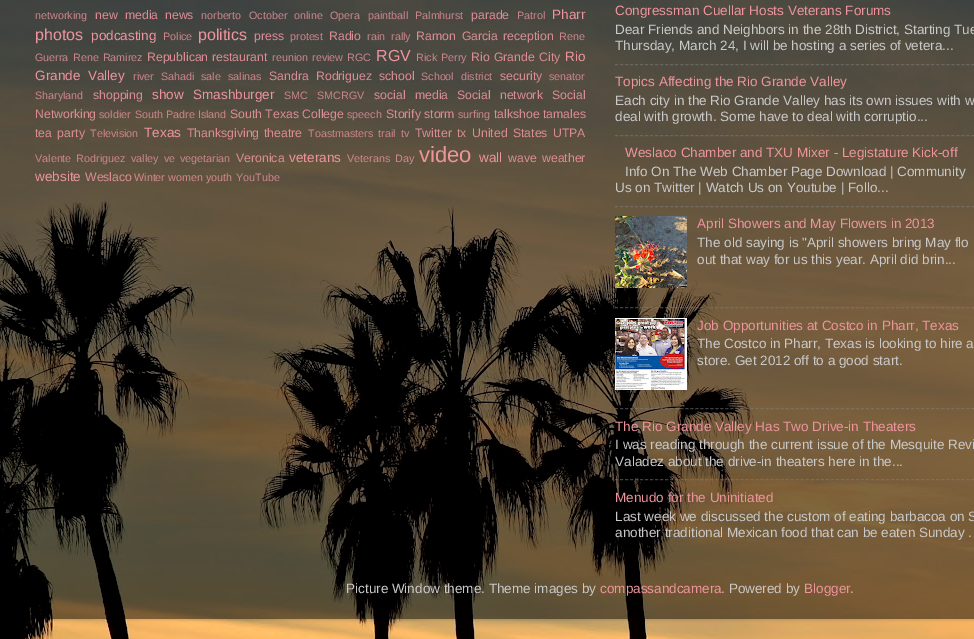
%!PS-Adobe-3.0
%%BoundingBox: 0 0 974 639
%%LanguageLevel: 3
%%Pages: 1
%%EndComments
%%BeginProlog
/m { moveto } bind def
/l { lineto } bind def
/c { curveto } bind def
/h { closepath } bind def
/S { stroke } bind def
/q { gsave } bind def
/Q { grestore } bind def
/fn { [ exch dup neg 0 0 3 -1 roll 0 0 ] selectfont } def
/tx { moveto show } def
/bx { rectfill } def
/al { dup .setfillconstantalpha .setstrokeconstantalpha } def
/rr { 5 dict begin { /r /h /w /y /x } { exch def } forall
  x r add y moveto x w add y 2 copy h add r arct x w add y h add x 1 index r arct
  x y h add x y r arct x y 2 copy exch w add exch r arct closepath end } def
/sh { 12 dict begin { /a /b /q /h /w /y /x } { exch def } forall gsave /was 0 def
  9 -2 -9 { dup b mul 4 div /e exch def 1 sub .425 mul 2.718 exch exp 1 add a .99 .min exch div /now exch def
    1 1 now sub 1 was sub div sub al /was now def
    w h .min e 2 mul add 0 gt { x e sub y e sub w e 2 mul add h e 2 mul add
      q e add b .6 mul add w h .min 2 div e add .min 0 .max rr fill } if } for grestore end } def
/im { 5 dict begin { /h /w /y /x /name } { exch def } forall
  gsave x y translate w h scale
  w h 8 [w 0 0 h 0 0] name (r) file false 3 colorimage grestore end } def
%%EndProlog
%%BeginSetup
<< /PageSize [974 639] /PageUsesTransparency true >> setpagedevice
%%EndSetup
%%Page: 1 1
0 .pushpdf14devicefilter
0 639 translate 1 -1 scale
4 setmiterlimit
1 setgray
0 0 974 639 bx
(image0.raw) 0 0 974 639 im
q
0 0 m 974 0 l 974 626 l 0 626 l h 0 -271 m 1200 -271 l 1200 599 l 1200 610 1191 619 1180 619 c 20 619 l 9 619 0 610 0 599 c h eoclip newpath
0 setgray
0 -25 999 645 20 1.5 0.15 sh
Q
(image1.raw) 0 0 974 619 im
/LiberationSans-Regular 10.75 fn
0.796 0.518 0.545 setrgbcolor
(networking) 35 19 tx
/LiberationSans-Regular 12.25 fn
0.863 0.549 0.58 setrgbcolor
95 19 m 4 0 32 (new media) widthshow
(news) 165 19 tx
/LiberationSans-Regular 10.75 fn
0.796 0.518 0.545 setrgbcolor
(norberto) 201 19 tx
(October) 249 19 tx
(online) 294 19 tx
(Opera) 330 19 tx
(paintball) 368 19 tx
(Palmhurst) 415 19 tx
/LiberationSans-Regular 12.25 fn
0.863 0.549 0.58 setrgbcolor
(parade) 471 19 tx
/LiberationSans-Regular 10.75 fn
0.796 0.518 0.545 setrgbcolor
(Patrol) 517 19 tx
/LiberationSans-Regular 13.5 fn
0.929 0.58 0.616 setrgbcolor
(Pharr) 552 19 tx
/LiberationSans-Regular 16 fn
(photos) 35 40 tx
/LiberationSans-Regular 13.5 fn
(podcasting) 91 40 tx
/LiberationSans-Regular 10.75 fn
0.796 0.518 0.545 setrgbcolor
(Police) 163 40 tx
/LiberationSans-Regular 16 fn
0.929 0.58 0.616 setrgbcolor
(politics) 198 40 tx
/LiberationSans-Regular 12.25 fn
0.863 0.549 0.58 setrgbcolor
(press) 254 40 tx
/LiberationSans-Regular 10.75 fn
0.796 0.518 0.545 setrgbcolor
(protest) 290 40 tx
/LiberationSans-Regular 12.25 fn
0.863 0.549 0.58 setrgbcolor
(Radio) 329 40 tx
/LiberationSans-Regular 10.75 fn
0.796 0.518 0.545 setrgbcolor
(rain) 367 40 tx
(rally) 391 40 tx
/LiberationSans-Regular 12.25 fn
0.863 0.549 0.58 setrgbcolor
416 40 m 3 0 32 (Ramon Garcia) widthshow
(reception) 503 40 tx
/LiberationSans-Regular 10.75 fn
0.796 0.518 0.545 setrgbcolor
(Rene) 559 40 tx
(Guerra) 35 61 tx
73 61 m 1 0 32 (Rene Ramirez) widthshow
/LiberationSans-Regular 12.25 fn
0.863 0.549 0.58 setrgbcolor
(Republican) 147 61 tx
(restaurant) 212 61 tx
/LiberationSans-Regular 10.75 fn
0.796 0.518 0.545 setrgbcolor
(reunion) 272 61 tx
(review) 312 61 tx
(RGC) 347 61 tx
/LiberationSans-Regular 16 fn
0.929 0.58 0.616 setrgbcolor
(RGV) 376 61 tx
/LiberationSans-Regular 10.75 fn
0.796 0.518 0.545 setrgbcolor
416 61 m 1 0 32 (Rick Perry) widthshow
/LiberationSans-Regular 12.25 fn
0.863 0.549 0.58 setrgbcolor
471 61 m 1 0 32 (Rio Grande City) widthshow
/LiberationSans-Regular 13.5 fn
0.929 0.58 0.616 setrgbcolor
(Rio) 565 61 tx
35 80 m 4 0 32 (Grande Valley) widthshow
/LiberationSans-Regular 10.75 fn
0.796 0.518 0.545 setrgbcolor
(river) 133 80 tx
(Sahadi) 161 80 tx
(sale) 201 80 tx
(salinas) 228 80 tx
/LiberationSans-Regular 12.25 fn
0.863 0.549 0.58 setrgbcolor
269 80 m 4 0 32 (Sandra Rodriguez) widthshow
(school) 379 80 tx
/LiberationSans-Regular 10.75 fn
0.796 0.518 0.545 setrgbcolor
421 80 m 4 0 32 (School district) widthshow
/LiberationSans-Regular 12.25 fn
0.863 0.549 0.58 setrgbcolor
(security) 500 80 tx
/LiberationSans-Regular 10.75 fn
0.796 0.518 0.545 setrgbcolor
(senator) 549 80 tx
(Sharyland) 35 99 tx
/LiberationSans-Regular 12.25 fn
0.863 0.549 0.58 setrgbcolor
(shopping) 93 99 tx
/LiberationSans-Regular 13.5 fn
0.929 0.58 0.616 setrgbcolor
(show) 152 99 tx
(Smashburger) 193 99 tx
/LiberationSans-Regular 10.75 fn
0.796 0.518 0.545 setrgbcolor
(SMC) 284 99 tx
(SMCRGV) 317 99 tx
/LiberationSans-Regular 12.25 fn
0.863 0.549 0.58 setrgbcolor
374 99 m 6 0 32 (social media) widthshow
457 99 m 6 0 32 (Social network) widthshow
(Social) 552 99 tx
(Networking) 35 118 tx
/LiberationSans-Regular 10.75 fn
0.796 0.518 0.545 setrgbcolor
(soldier) 99 118 tx
(South Padre Island) 135 118 tx
/LiberationSans-Regular 12.25 fn
0.863 0.549 0.58 setrgbcolor
(South Texas College) 230 118 tx
/LiberationSans-Regular 10.75 fn
0.796 0.518 0.545 setrgbcolor
(speech) 347 118 tx
/LiberationSans-Regular 12.25 fn
0.863 0.549 0.58 setrgbcolor
(Storify) 386 118 tx
(storm) 424 118 tx
/LiberationSans-Regular 10.75 fn
0.796 0.518 0.545 setrgbcolor
(surfing) 458 118 tx
/LiberationSans-Regular 12.25 fn
0.863 0.549 0.58 setrgbcolor
(talkshoe) 494 118 tx
(tamales) 543 118 tx
35 137 m 2 0 32 (tea party) widthshow
/LiberationSans-Regular 10.75 fn
0.796 0.518 0.545 setrgbcolor
(Television) 90 137 tx
/LiberationSans-Regular 13.5 fn
0.929 0.58 0.616 setrgbcolor
(Texas) 144 137 tx
/LiberationSans-Regular 12.25 fn
0.863 0.549 0.58 setrgbcolor
(Thanksgiving) 187 137 tx
(theatre) 264 137 tx
/LiberationSans-Regular 10.75 fn
0.796 0.518 0.545 setrgbcolor
(Toastmasters) 308 137 tx
(trail) 378 137 tx
(tv) 401 137 tx
/LiberationSans-Regular 12.25 fn
0.863 0.549 0.58 setrgbcolor
(Twitter) 415 137 tx
(tx) 457 137 tx
472 137 m 2 0 32 (United States) widthshow
(UTPA) 553 137 tx
/LiberationSans-Regular 10.75 fn
0.796 0.518 0.545 setrgbcolor
35 162 m 2 0 32 (Valente Rodriguez) widthshow
(valley) 131 162 tx
(ve) 164 162 tx
(vegetarian) 180 162 tx
/LiberationSans-Regular 12.25 fn
0.863 0.549 0.58 setrgbcolor
(Veronica) 236 162 tx
/LiberationSans-Regular 13.5 fn
0.929 0.58 0.616 setrgbcolor
(veterans) 289 162 tx
/LiberationSans-Regular 10.75 fn
0.82 0.529 0.541 setrgbcolor
347 162 m 2 0 32 (Veterans Day) widthshow
/LiberationSans-Regular 22 fn
0.929 0.58 0.616 setrgbcolor
(video) 419 162 tx
/LiberationSans-Regular 13.5 fn
(wall) 479 162 tx
/LiberationSans-Regular 12.25 fn
0.863 0.549 0.58 setrgbcolor
(wave) 508 162 tx
(weather) 542 162 tx
/LiberationSans-Regular 13.5 fn
0.929 0.58 0.616 setrgbcolor
(website) 35 181 tx
/LiberationSans-Regular 12.25 fn
0.863 0.549 0.58 setrgbcolor
(Weslaco) 85 181 tx
/LiberationSans-Regular 10.75 fn
0.82 0.529 0.541 setrgbcolor
(Winter women youth) 134 181 tx
0.796 0.518 0.545 setrgbcolor
(YouTube) 236 181 tx
/LiberationSans-Regular 13.5 fn
0.929 0.58 0.616 setrgbcolor
(Congressman Cuellar Hosts Veterans Forums) 615 15 tx
0.788 setgray
(Dear Friends and Neighbors in the 28th District, Starting Tue) 615 34 tx
(Thursday, March 24, I will be hosting a series of vetera...) 615 50 tx
0.5 al
0.502 setgray
[3 2.02] 0 setdash
615 64.5 m 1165 64.5 l S
1 al
0.929 0.58 0.616 setrgbcolor
(Topics Affecting the Rio Grande Valley) 615 86 tx
0.788 setgray
(Each city in the Rio Grande Valley has its own issues with w) 615 105 tx
(deal with growth. Some have to deal with corruptio...) 615 121 tx
0.5 al
0.502 setgray
615 135.5 m 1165 135.5 l S
1 al
0.929 0.58 0.616 setrgbcolor
(Weslaco Chamber and TXU Mixer - Legistature Kick-off) 625 157 tx
0.788 setgray
(Info On The Web Chamber Page Download | Community) 625 176 tx
(Us on Twitter | Watch Us on Youtube | Follo...) 615 192 tx
0.5 al
0.502 setgray
615 206.5 m 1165 206.5 l S
1 al
(image2.raw) 615 216 72 72 im
0.929 0.58 0.616 setrgbcolor
(April Showers and May Flowers in 2013) 697 228 tx
0.788 setgray
(The old saying is "April showers bring May flo) 697 247 tx
(out that way for us this year. April did brin...) 697 264 tx
0.5 al
0.502 setgray
615 307.5 m 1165 307.5 l S
1 al
(image3.raw) 615 318 72 72 im
0.929 0.58 0.616 setrgbcolor
(Job Opportunities at Costco in Pharr, Texas) 697 330 tx
0.788 setgray
(The Costco in Pharr, Texas is looking to hire a) 697 348 tx
(store. Get 2012 off to a good start.) 697 365 tx
0.5 al
0.502 setgray
615 408.5 m 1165 408.5 l S
1 al
0.929 0.58 0.616 setrgbcolor
(The Rio Grande Valley Has Two Drive-in Theaters) 615 431 tx
0.788 setgray
(I was reading through the current issue of the Mesquite Revi) 615 449 tx
(Valadez about the drive-in theaters here in the...) 615 466 tx
0.5 al
0.502 setgray
615 479.5 m 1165 479.5 l S
1 al
0.929 0.58 0.616 setrgbcolor
(Menudo for the Uninitiated) 615 502 tx
0.788 setgray
(Last week we discussed the custom of eating barbacoa on S) 615 521 tx
(another traditional Mexican food that can be eaten Sunday .) 615 537 tx
(Picture Window theme. Theme images by) 346 593 tx
0.929 0.58 0.616 setrgbcolor
(compassandcamera) 600 593 tx
0.788 setgray
(. Powered by) 721 593 tx
0.929 0.58 0.616 setrgbcolor
(Blogger) 804 593 tx
0.788 setgray
(.) 850 593 tx
.poppdf14devicefilter showpage
%%EOF
